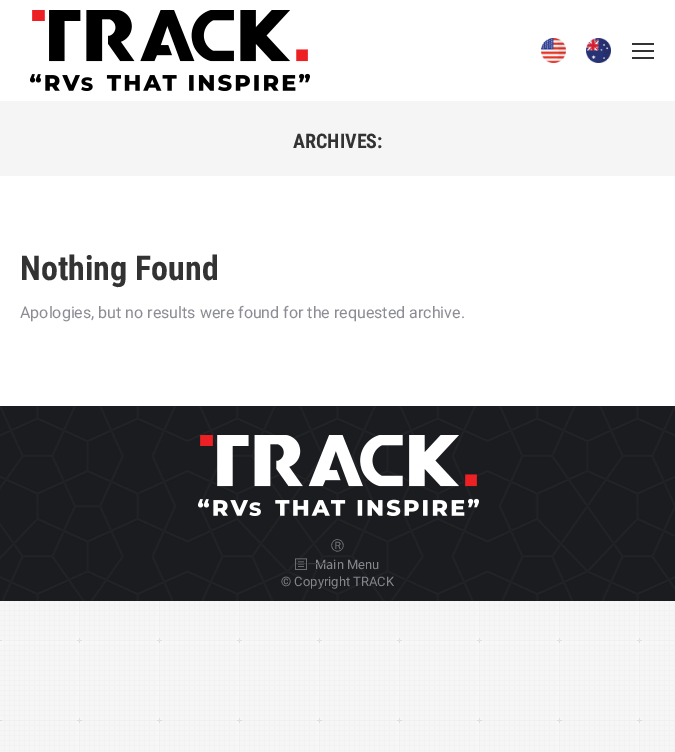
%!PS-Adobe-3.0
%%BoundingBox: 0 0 675 752
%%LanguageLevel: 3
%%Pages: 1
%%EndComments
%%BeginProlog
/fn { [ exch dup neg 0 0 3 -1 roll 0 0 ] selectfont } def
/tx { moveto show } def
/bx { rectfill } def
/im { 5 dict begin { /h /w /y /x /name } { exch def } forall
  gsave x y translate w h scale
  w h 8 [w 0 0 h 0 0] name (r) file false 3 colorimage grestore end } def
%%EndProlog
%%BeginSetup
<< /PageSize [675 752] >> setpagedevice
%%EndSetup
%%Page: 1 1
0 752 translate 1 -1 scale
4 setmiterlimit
0.969 setgray
0 0 675 752 bx
(image0.raw) 0 601 675 151 im
1 setgray
0 0 675 406 bx
(image1.raw) 30 10 280 81 im
(image2.raw) 541 38 25 25 im
(image3.raw) 586 38 25 25 im
0.2 setgray
632 43 22 2 bx
632 50 22 2 bx
632 57 22 2 bx
0.961 setgray
0 101 675 75 bx
/RobotoCondensed-Bold 20 fn
0.2 setgray
(ARCHIVES:) 293 148 tx
/RobotoCondensed-Bold 34 fn
(Nothing Found) 20 280 tx
/Roboto-Regular 16 fn
0.545 0.553 0.58 setrgbcolor
(Apologies, but no results were found for the requested archive.) 20 318 tx
0.102 0.11 0.125 setrgbcolor
0 406 675 195 bx
(image4.raw) 0 406 675 195 im
(image5.raw) 198 435 281 81 im
/WenQuanYiZenHei-Medium 13 fn
0.522 0.525 0.549 setrgbcolor
(Ⓡ) 331 550 tx
(image6.raw) 295 558 12 12 im
/Roboto-Regular 13 fn
(Main Menu) 315 569 tx
/Roboto-Regular 15 fn
0.204 0.208 0.224 setrgbcolor
(———) 295 569 tx
/Roboto-Regular 13 fn
0.522 0.525 0.549 setrgbcolor
(© Copyright TRACK) 281 586 tx
showpage
%%EOF
